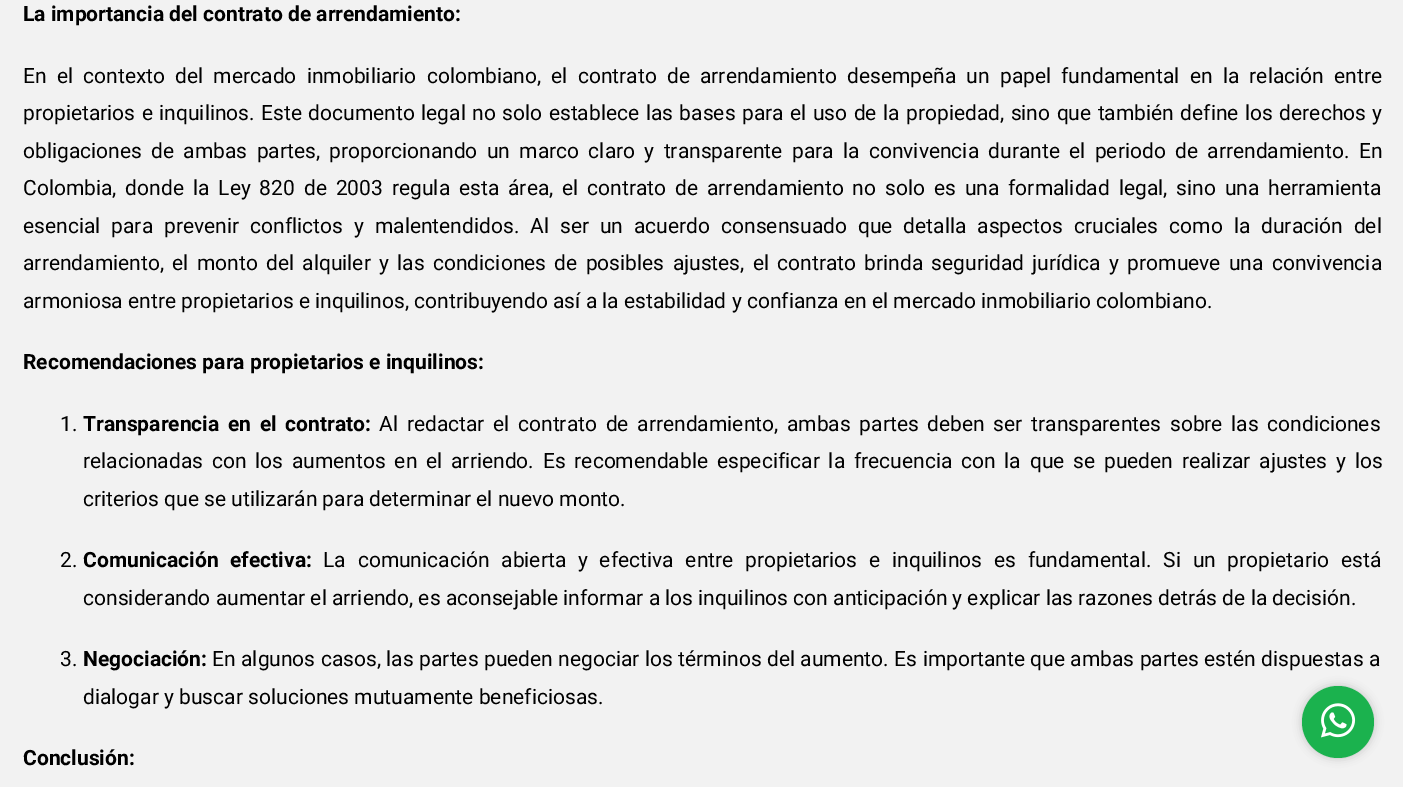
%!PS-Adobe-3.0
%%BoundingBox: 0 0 1403 787
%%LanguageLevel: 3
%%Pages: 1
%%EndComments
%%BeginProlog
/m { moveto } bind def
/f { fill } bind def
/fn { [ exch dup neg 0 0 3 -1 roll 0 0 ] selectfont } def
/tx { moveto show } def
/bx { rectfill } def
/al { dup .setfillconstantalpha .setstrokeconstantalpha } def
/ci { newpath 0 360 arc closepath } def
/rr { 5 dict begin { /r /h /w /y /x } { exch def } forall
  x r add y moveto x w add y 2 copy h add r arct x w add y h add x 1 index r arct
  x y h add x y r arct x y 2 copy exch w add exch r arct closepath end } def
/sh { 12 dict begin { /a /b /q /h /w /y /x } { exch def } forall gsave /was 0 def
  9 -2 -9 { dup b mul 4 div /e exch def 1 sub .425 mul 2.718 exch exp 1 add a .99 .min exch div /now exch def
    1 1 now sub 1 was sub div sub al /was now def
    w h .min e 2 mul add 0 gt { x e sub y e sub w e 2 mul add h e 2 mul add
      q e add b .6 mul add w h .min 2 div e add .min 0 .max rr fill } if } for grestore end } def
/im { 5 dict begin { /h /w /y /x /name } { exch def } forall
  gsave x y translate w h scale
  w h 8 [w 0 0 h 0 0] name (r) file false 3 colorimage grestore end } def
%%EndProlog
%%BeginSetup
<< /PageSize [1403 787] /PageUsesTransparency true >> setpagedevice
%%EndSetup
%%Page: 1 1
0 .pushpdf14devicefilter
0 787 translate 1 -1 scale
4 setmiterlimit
0.949 setgray
0 0 1403 787 bx
/Roboto-Bold 21 fn
0 setgray
(La importancia del contrato de arrendamiento:) 23 21 tx
/Roboto-Regular 21 fn
23 83 m 5 0 32 (En el contexto del mercado inmobiliario colombiano, el contrato de arrendamiento desempeña un papel fundamental en la relación entre) widthshow
23 120 m 1.25 0 32 (propietarios e inquilinos. Este documento legal no solo establece las bases para el uso de la propiedad, sino que también define los derechos y) widthshow
23 158 m 4.1 0 32 (obligaciones de ambas partes, proporcionando un marco claro y transparente para la convivencia durante el periodo de arrendamiento. En) widthshow
23 195 m 3.7 0 32 (Colombia, donde la Ley 820 de 2003 regula esta área, el contrato de arrendamiento no solo es una formalidad legal, sino una herramienta) widthshow
23 233 m 5.75 0 32 (esencial para prevenir conflictos y malentendidos. Al ser un acuerdo consensuado que detalla aspectos cruciales como la duración del) widthshow
23 270 m 3.1 0 32 (arrendamiento, el monto del alquiler y las condiciones de posibles ajustes, el contrato brinda seguridad jurídica y promueve una convivencia) widthshow
(armoniosa entre propietarios e inquilinos, contribuyendo así a la estabilidad y confianza en el mercado inmobiliario colombiano.) 23 308 tx
/Roboto-Bold 21 fn
(Recomendaciones para propietarios e inquilinos:) 23 369 tx
/Roboto-Regular 21 fn
(1.) 60 431 tx
/Roboto-Bold 21 fn
83 431 m 3.5 0 32 (Transparencia en el contrato:) widthshow
/Roboto-Regular 21 fn
379 431 m 3.5 0 32 (Al redactar el contrato de arrendamiento, ambas partes deben ser transparentes sobre las condiciones) widthshow
83 468 m 3.6 0 32 (relacionadas con los aumentos en el arriendo. Es recomendable especificar la frecuencia con la que se pueden realizar ajustes y los) widthshow
(criterios que se utilizarán para determinar el nuevo monto.) 83 506 tx
(2.) 60 567 tx
/Roboto-Bold 21 fn
83 567 m 6.6 0 32 (Comunicación efectiva:) widthshow
/Roboto-Regular 21 fn
323 567 m 6.6 0 32 (La comunicación abierta y efectiva entre propietarios e inquilinos es fundamental. Si un propietario está) widthshow
(considerando aumentar el arriendo, es aconsejable informar a los inquilinos con anticipación y explicar las razones detrás de la decisión.) 83 605 tx
(3.) 60 666 tx
/Roboto-Bold 21 fn
(Negociación:) 83 666 tx
/Roboto-Regular 21 fn
212 666 m 0.25 0 32 (En algunos casos, las partes pueden negociar los términos del aumento. Es importante que ambas partes estén dispuestas a) widthshow
(dialogar y buscar soluciones mutuamente beneficiosas.) 83 704 tx
/Roboto-Bold 21 fn
(Conclusión:) 23 765 tx
1302 686 72 72 36 4.5 0.2 sh
0.106 0.698 0.306 setrgbcolor
1338 722 36 ci f
(image0.raw) 1321 703 35 35 im
.poppdf14devicefilter showpage
%%EOF
